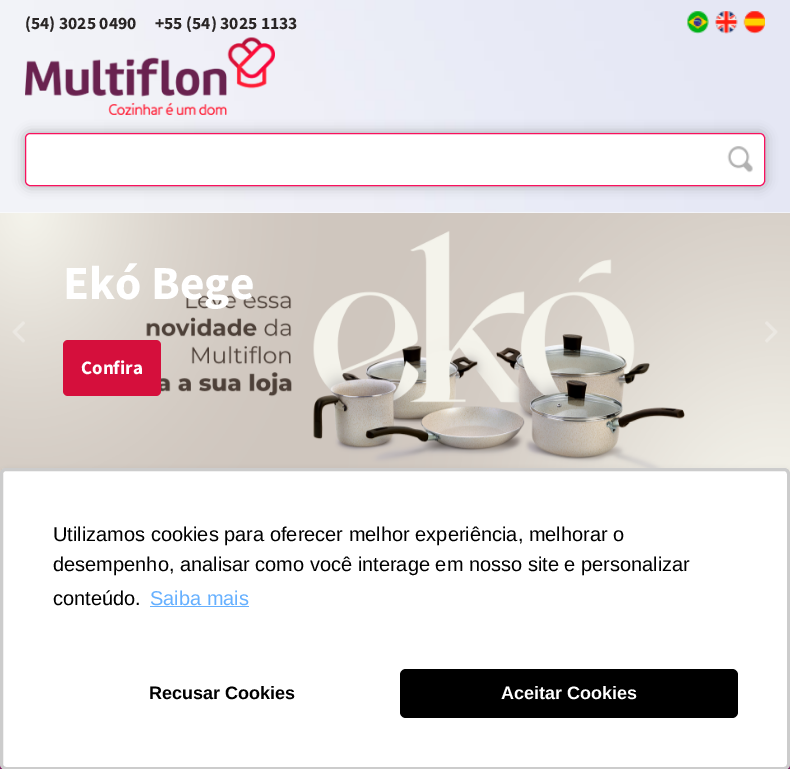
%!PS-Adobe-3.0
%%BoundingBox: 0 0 790 769
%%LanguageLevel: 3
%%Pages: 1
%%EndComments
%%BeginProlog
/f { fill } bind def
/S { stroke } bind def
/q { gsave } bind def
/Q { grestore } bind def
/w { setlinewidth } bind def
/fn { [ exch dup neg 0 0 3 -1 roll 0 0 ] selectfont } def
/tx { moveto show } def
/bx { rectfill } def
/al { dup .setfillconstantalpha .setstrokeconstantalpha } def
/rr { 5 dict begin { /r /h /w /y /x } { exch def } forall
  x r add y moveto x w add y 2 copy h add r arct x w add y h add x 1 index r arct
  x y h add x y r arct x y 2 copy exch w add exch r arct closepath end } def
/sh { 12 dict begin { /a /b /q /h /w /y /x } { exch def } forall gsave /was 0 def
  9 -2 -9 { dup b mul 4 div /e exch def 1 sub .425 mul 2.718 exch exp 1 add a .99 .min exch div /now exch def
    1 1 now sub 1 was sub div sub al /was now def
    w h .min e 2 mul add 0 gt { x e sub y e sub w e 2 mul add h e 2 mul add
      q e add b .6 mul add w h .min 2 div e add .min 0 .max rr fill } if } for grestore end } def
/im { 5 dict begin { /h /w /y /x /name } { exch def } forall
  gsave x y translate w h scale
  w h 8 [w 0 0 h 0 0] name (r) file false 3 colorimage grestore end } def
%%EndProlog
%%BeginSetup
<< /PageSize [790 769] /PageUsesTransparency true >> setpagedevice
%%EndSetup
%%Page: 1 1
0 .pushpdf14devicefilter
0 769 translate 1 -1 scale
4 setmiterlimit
1 setgray
0 0 790 769 bx
(image0.raw) 0 0 790 213 im
/Mada-Bold 17.5 fn
0.161 0.145 0.145 setrgbcolor
(\(54\) 3025 0490) 25 29 tx
(+55 \(54\) 3025 1133) 155 29 tx
(image1.raw) 687 11 22 23 im
(image2.raw) 715 11 23 23 im
(image3.raw) 743 11 22 23 im
(image5.raw) 25 37 250 78 im
0 setgray
25 133 740 53 5 6 0.3 sh
1 setgray
25.5 133.5 739 52 4.5 rr q f Q
0.976 0.067 0.365 setrgbcolor
S
(image4.raw) 727 146 26 27 im
(image6.raw) 0 213 790 261 im
/Mada-Bold 47.5 fn
1 setgray
(Ekó Bege) 63 299 tx
0.835 0.059 0.235 setrgbcolor
63 340 98 56 5 rr f
/Mada-Bold 19 fn
1 setgray
(Confira) 81 374 tx
(image7.raw) 12 321 13 22 im
(image8.raw) 765 321 13 22 im
0.49 0.118 0.38 setrgbcolor
0 764 790 5 bx
0 setgray
1 470 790 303 6 2.5 0.1 sh
1 setgray
0 468 790 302 6 rr f
0.2 al
0 setgray
3 w
1.5 469.5 787 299 4.5 rr S
/LiberationSans-Regular 20 fn
1 al
(Utilizamos cookies para oferecer melhor experiência, melhorar o) 53 541 tx
(desempenho, analisar como você interage em nosso site e personalizar) 53 571 tx
(conteúdo.) 53 605 tx
0.4 0.69 1 setrgbcolor
(Saiba mais) 150 605 tx
150 606 99 1 bx
/LiberationSans-Bold 18 fn
0 setgray
(Recusar Cookies) 149 699 tx
400 669 338 49 6 rr f
1 setgray
(Aceitar Cookies) 501 699 tx
.poppdf14devicefilter showpage
%%EOF
